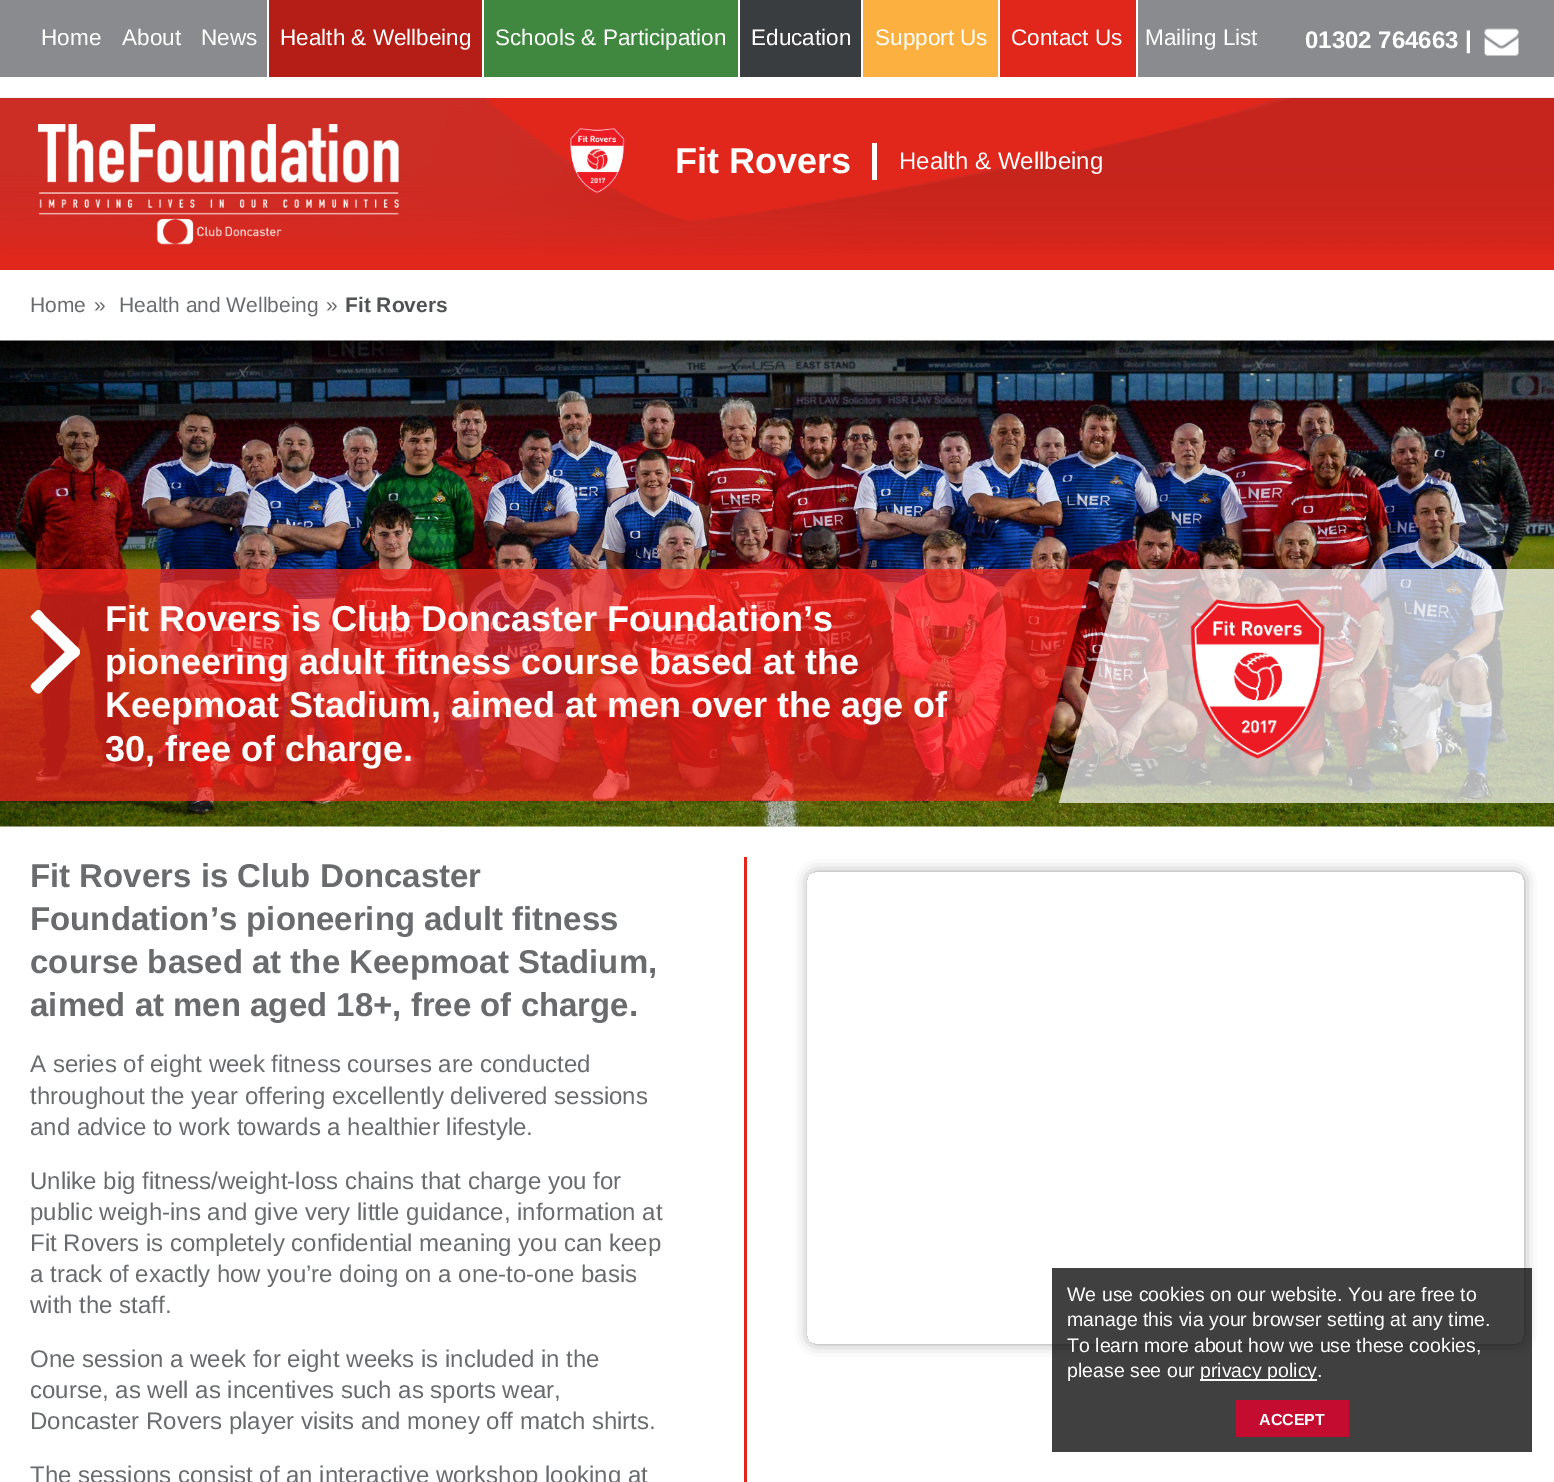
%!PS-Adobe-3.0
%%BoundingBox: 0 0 1554 1482
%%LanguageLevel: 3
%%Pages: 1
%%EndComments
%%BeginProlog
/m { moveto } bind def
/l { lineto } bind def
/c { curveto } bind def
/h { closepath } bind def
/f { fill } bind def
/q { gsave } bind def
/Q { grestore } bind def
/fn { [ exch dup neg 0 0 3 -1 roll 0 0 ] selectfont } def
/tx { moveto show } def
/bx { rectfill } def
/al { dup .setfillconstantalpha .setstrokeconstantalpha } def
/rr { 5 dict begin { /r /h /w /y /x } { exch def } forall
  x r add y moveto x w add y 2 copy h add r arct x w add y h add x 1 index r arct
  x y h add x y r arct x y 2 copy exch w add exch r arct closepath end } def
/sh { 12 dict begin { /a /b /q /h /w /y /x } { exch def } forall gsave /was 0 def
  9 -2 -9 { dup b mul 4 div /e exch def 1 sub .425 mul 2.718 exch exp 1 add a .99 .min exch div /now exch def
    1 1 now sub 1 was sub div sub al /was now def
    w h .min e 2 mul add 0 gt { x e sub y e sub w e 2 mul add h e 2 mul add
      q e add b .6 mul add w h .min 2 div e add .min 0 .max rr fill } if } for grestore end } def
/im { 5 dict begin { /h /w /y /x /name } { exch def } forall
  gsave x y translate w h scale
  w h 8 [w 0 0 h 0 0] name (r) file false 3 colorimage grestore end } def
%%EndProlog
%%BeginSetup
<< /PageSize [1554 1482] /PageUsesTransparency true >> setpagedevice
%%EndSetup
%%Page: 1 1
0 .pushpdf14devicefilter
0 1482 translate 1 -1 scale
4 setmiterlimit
1 setgray
0 0 1554 1482 bx
0.537 0.545 0.557 setrgbcolor
0 0 1554 77 bx
/LiberationSans-Regular 22.5 fn
1 setgray
(Home) 41 45 tx
(About) 122 45 tx
(News) 201 45 tx
0.706 0.118 0.086 setrgbcolor
269 0 213 77 bx
1 setgray
267 0 2 77 bx
(Health & Wellbeing) 280 45 tx
0.251 0.529 0.251 setrgbcolor
484 0 254 77 bx
1 setgray
482 0 2 77 bx
(Schools & Participation) 495 45 tx
0.227 0.239 0.251 setrgbcolor
740 0 121 77 bx
1 setgray
738 0 2 77 bx
(Education) 751 45 tx
0.984 0.69 0.251 setrgbcolor
863 0 135 77 bx
1 setgray
861 0 2 77 bx
(Support Us) 875 45 tx
0.882 0.149 0.11 setrgbcolor
1000 0 136 77 bx
1 setgray
1136 0 2 77 bx
998 0 2 77 bx
(Contact Us) 1011 45 tx
(Mailing List) 1145 45 tx
/LiberationSans-Bold 24 fn
(01302 764663 |) 1305 48 tx
(image0.raw) 1484 28 35 28 im
0.882 0.149 0.11 setrgbcolor
0 98 1554 172 bx
(image1.raw) 0 97 1554 159 im
(image2.raw) 38 124 361 121 im
(image3.raw) 569 127 57 67 im
/LiberationSans-Bold 36 fn
1 setgray
(Fit Rovers) 675 173 tx
872 143 5 37 bx
/LiberationSans-Regular 24 fn
(Health & Wellbeing) 899 169 tx
/LiberationSans-Regular 21 fn
0.412 0.42 0.427 setrgbcolor
(Home) 30 312 tx
(») 94 312 tx
(Health and Wellbeing) 119 312 tx
(») 326 312 tx
/LiberationSans-Bold 21 fn
0.314 0.322 0.325 setrgbcolor
(Fit Rovers) 345 312 tx
(image4.raw) 0 340 1554 487 im
q
0 569 1554 235 rectclip
0.7 al
1 0.149 0.11 setrgbcolor
-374 568 m 1092 568 l 1030 801 l -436 801 l h f
Q
1 setgray
80 652 m 80 656 75 658 73 660 c 46 686 l 40 693 40 696 34 691 c 31 687 l 30 684 36 681 37 679 c 65 652 l 37 624 l 37 624 30 619 31 616 c 35 612 l 40 607 42 613 46 617 c 73 643 l 75 646 80 648 80 652 c h f
/LiberationSans-Bold 36 fn
(Fit Rovers is Club Doncaster Foundation’s) 105 631 tx
(pioneering adult fitness course based at the) 105 674 tx
(Keepmoat Stadium, aimed at men over the age of) 105 717 tx
(30, free of charge.) 105 761 tx
q
0 569 1554 235 rectclip
0.7 al
1122 568 m 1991 568 l 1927 803 l 1059 803 l h f
Q
(image5.raw) 1190 599 135 160 im
0.882 0.149 0.11 setrgbcolor
744 857 3 625 bx
/LiberationSans-Bold 33 fn
0.412 0.42 0.427 setrgbcolor
(Fit Rovers is Club Doncaster) 30 887 tx
(Foundation’s pioneering adult fitness) 30 930 tx
(course based at the Keepmoat Stadium,) 30 973 tx
(aimed at men aged 18+, free of charge.) 30 1016 tx
/LiberationSans-Regular 24 fn
(A series of eight week fitness courses are conducted) 30 1072 tx
(throughout the year offering excellently delivered sessions) 30 1104 tx
(and advice to work towards a healthier lifestyle.) 30 1135 tx
(Unlike big fitness/weight-loss chains that charge you for) 30 1189 tx
(public weigh-ins and give very little guidance, information at) 30 1220 tx
(Fit Rovers is completely confidential meaning you can keep) 30 1251 tx
(a track of exactly how you’re doing on a one-to-one basis) 30 1282 tx
(with the staff.) 30 1313 tx
(One session a week for eight weeks is included in the) 30 1367 tx
(course, as well as incentives such as sports wear,) 30 1398 tx
(Doncaster Rovers player visits and money off match shirts.) 30 1429 tx
(The sessions consist of an interactive workshop looking at) 30 1483 tx
q
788 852 m 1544 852 l 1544 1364 l 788 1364 l h 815 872 m 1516 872 l 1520.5 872 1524 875.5 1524 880 c 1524 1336 l 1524 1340.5 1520.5 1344 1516 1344 c 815 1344 l 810.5 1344 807 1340.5 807 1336 c 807 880 l 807 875.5 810.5 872 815 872 c h eoclip newpath
0 setgray
812 876 708 464 3 7.5 0.65 sh
Q
0.75 al
0 setgray
1052 1268 480 184 bx
/LiberationSans-Regular 19.5 fn
1 al
1 setgray
(We use cookies on our website. You are free to) 1067 1301 tx
(manage this via your browser setting at any time.) 1067 1326 tx
(To learn more about how we use these cookies,) 1067 1352 tx
(please see our) 1067 1377 tx
1200 1379 117 2 bx
(privacy policy.) 1200 1377 tx
0.765 0.047 0.188 setrgbcolor
1236 1400 113 37 bx
/LiberationSans-Bold 16 fn
1 setgray
(ACCEPT) 1259 1425 tx
.poppdf14devicefilter showpage
%%EOF
